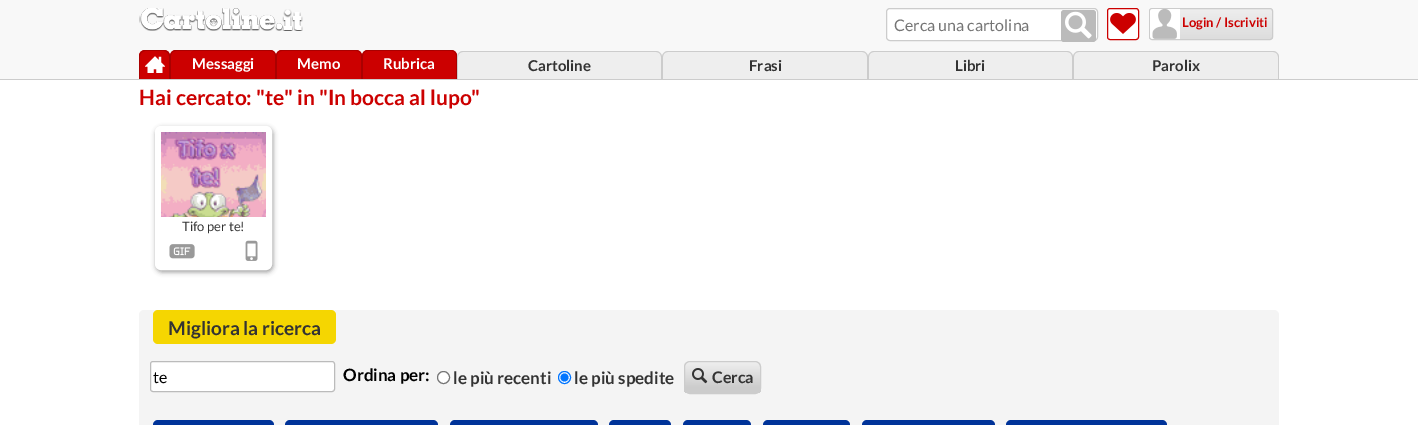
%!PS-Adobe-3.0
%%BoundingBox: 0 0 1418 425
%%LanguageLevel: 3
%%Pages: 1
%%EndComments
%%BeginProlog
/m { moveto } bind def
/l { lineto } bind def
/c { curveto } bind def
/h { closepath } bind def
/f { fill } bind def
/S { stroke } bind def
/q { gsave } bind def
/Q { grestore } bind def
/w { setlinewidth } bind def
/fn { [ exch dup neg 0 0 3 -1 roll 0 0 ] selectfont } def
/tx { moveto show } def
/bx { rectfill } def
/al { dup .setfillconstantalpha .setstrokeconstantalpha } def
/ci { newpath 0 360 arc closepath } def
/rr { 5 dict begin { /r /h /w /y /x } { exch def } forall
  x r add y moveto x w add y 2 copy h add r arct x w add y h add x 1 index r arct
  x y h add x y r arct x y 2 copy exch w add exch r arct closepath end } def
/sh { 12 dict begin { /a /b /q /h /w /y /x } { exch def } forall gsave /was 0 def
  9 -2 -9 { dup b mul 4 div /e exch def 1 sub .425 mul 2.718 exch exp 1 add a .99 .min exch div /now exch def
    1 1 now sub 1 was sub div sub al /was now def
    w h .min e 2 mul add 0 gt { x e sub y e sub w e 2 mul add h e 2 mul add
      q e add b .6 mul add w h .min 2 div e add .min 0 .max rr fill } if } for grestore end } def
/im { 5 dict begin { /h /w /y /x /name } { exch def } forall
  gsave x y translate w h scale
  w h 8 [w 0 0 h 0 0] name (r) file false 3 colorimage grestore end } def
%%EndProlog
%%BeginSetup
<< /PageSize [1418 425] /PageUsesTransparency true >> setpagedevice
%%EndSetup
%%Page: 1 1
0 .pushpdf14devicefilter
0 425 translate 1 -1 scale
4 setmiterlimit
1 setgray
0 0 1418 425 bx
0.973 setgray
0 0 1418 79 bx
0.8 setgray
0 79 1418 1 bx
(image0.raw) 139 8 164 23 im
1 setgray
886.5 8.5 211 32 3.5 rr q f Q
0.8 setgray
S
/Lato-Regular 16 fn
0.459 setgray
(Cerca una cartolina) 894 31 tx
0.733 setgray
1061 10 35 32 3 rr f
(image1.raw) 1065 11 27 28 im
1 setgray
1107.5 8.5 31 31 2.5 rr q f Q
0.8 0 0 setrgbcolor
S
(image2.raw) 1110 13 26 21 im
q
1149 8 124 32 3 rr clip newpath
q 1149 9 m 1273 9 l 1273 39 l 1149 39 l h clip newpath
<< /ShadingType 2 /ColorSpace /DeviceRGB /Coords [1211 9 1211 39] /Extend [true true] /Function << /FunctionType 2 /Domain [0 1] /C0 [0.933 0.933 0.933] /C1 [0.867 0.867 0.867] /N 1 >> >> shfill Q
Q
0.8 setgray
1149.5 8.5 123 31 2.5 rr S
1 setgray
1153 9 m 1180 9 l 1180 39 l 1153 39 l 1151.5 39 1150 37.5 1150 36 c 1150 12 l 1150 10.5 1151.5 9 1153 9 c h f
(image3.raw) 1152 9 25 30 im
/Lato-Bold 13 fn
0.8 0 0 setrgbcolor
(Login / Iscriviti) 1182 27 tx
145 50 m 164 50 l 167.5 50 170 52.5 170 56 c 170 79 l 139 79 l 139 56 l 139 52.5 141.5 50 145 50 c h f
0.667 0 0 setrgbcolor
145.5 50 m 163.5 50 l 167 50 170 53 170 56.5 c 170 79 l 139 79 l 139 56.5 l 139 53 142 50 145.5 50 c h 145.5 51 m 163.5 51 l 166.5 51 169 53.5 169 56.5 c 169 79 l 140 79 l 140 56.5 l 140 53.5 142.5 51 145.5 51 c h eofill
(image4.raw) 145 56 20 17 im
0.8 0 0 setrgbcolor
176 50 m 270 50 l 273.5 50 276 52.5 276 56 c 276 79 l 170 79 l 170 56 l 170 52.5 172.5 50 176 50 c h f
0.667 0 0 setrgbcolor
176 50 m 270 50 l 273 50 276 53 276 56 c 276 79 l 170 79 l 170 56 l 170 53 173 50 176 50 c h 176 51 m 270 51 l 273 51 275 53 275 56 c 275 79 l 171 79 l 171 56 l 171 53 173 51 176 51 c h eofill
/Lato-Bold 15 fn
1 setgray
(Messaggi) 192 69 tx
0.8 0 0 setrgbcolor
282 50 m 356 50 l 359.5 50 362 52.5 362 56 c 362 79 l 276 79 l 276 56 l 276 52.5 278.5 50 282 50 c h f
0.667 0 0 setrgbcolor
282 50 m 356 50 l 359 50 362 53 362 56 c 362 79 l 276 79 l 276 56 l 276 53 279 50 282 50 c h 282 51 m 356 51 l 359 51 361 53 361 56 c 361 79 l 277 79 l 277 56 l 277 53 279 51 282 51 c h eofill
1 setgray
(Memo) 297 69 tx
0.8 0 0 setrgbcolor
368 50 m 451 50 l 454.5 50 457 52.5 457 56 c 457 79 l 362 79 l 362 56 l 362 52.5 364.5 50 368 50 c h f
0.667 0 0 setrgbcolor
368 50 m 451 50 l 454 50 457 53 457 56 c 457 79 l 362 79 l 362 56 l 362 53 365 50 368 50 c h 368 51 m 451 51 l 454 51 456 53 456 56 c 456 79 l 363 79 l 363 56 l 363 53 365 51 368 51 c h eofill
1 setgray
(Rubrica) 383 69 tx
0.933 setgray
463 51 m 656 51 l 659.5 51 662 53.5 662 57 c 662 79 l 457 79 l 457 57 l 457 53.5 459.5 51 463 51 c h f
0.8 setgray
463 51 m 656 51 l 659 51 662 54 662 57 c 662 79 l 457 79 l 457 57 l 457 54 460 51 463 51 c h 463 52 m 656 52 l 659 52 661 54 661 57 c 661 79 l 458 79 l 458 57 l 458 54 460 52 463 52 c h eofill
0.2 setgray
(Cartoline) 528 71 tx
0.933 setgray
668 51 m 862 51 l 865.5 51 868 53.5 868 57 c 868 79 l 662 79 l 662 57 l 662 53.5 664.5 51 668 51 c h f
0.8 setgray
668 51 m 862 51 l 865 51 868 54 868 57 c 868 79 l 662 79 l 662 57 l 662 54 665 51 668 51 c h 668 52 m 862 52 l 865 52 867 54 867 57 c 867 79 l 663 79 l 663 57 l 663 54 665 52 668 52 c h eofill
0.2 setgray
(Frasi) 749 71 tx
0.933 setgray
874 51 m 1067 51 l 1070.5 51 1073 53.5 1073 57 c 1073 79 l 868 79 l 868 57 l 868 53.5 870.5 51 874 51 c h f
0.8 setgray
874 51 m 1067 51 l 1070 51 1073 54 1073 57 c 1073 79 l 868 79 l 868 57 l 868 54 871 51 874 51 c h 874 52 m 1067 52 l 1070 52 1072 54 1072 57 c 1072 79 l 869 79 l 869 57 l 869 54 871 52 874 52 c h eofill
0.2 setgray
(Libri) 955 71 tx
0.933 setgray
1079 51 m 1273 51 l 1276.5 51 1279 53.5 1279 57 c 1279 79 l 1073 79 l 1073 57 l 1073 53.5 1075.5 51 1079 51 c h f
0.8 setgray
1079 51 m 1273 51 l 1276 51 1279 54 1279 57 c 1279 79 l 1073 79 l 1073 57 l 1073 54 1076 51 1079 51 c h 1079 52 m 1273 52 l 1276 52 1278 54 1278 57 c 1278 79 l 1074 79 l 1074 57 l 1074 54 1076 52 1079 52 c h eofill
0.2 setgray
(Parolix) 1152 71 tx
/Lato-Bold 21 fn
0.8 0 0 setrgbcolor
(Hai cercato: "te" in "In bocca al lupo") 139 105 tx
0.6 setgray
156 128 117 144 6 2.5 1 sh
1 setgray
158 129 111 138 3 rr q f Q
6 w
S
(image5.raw) 161 132 105 85 im
/Lato-Regular 13 fn
0.2 setgray
(Tifo per te!) 182 231 tx
(image6.raw) 169 244 26 15 im
(image7.raw) 245 240 13 21 im
0.957 setgray
139 310 1140 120 5 rr f
0.961 0.839 0.004 setrgbcolor
153 310 183 34 5 rr f
/Lato-Bold 19 fn
0.2 setgray
(Migliora la ricerca) 168 335 tx
1 setgray
150.5 361.5 184 30 2.5 rr q f Q
0.733 setgray
1 w
S
/Lato-Regular 16 fn
0 setgray
(te) 153 383 tx
/Lato-Bold 17 fn
(Ordina per:) 343 381 tx
1 setgray
443.5 377.5 6 ci q f Q
0.463 setgray
S
0.2 setgray
(le più recenti) 453 384 tx
1 setgray
564.5 377.5 6 ci q f Q
0 0.459 1 setrgbcolor
S
564.5 377.5 4 ci f
0.2 setgray
(le più spedite) 574 384 tx
q
684 361 77 33 6 rr clip newpath
q 684 362 m 761 362 l 761 393 l 684 393 l h clip newpath
<< /ShadingType 2 /ColorSpace /DeviceRGB /Coords [723 362 723 393] /Extend [true true] /Function << /FunctionType 3 /Domain [0 1] /Functions [<< /FunctionType 2 /Domain [0 1] /C0 [0.937 0.937 0.937] /C1 [0.8 0.8 0.8] /N 1 >> << /FunctionType 2 /Domain [0 1] /C0 [0.8 0.8 0.8] /C1 [0.8 0.8 0.8] /N 1 >>] /Bounds [0.82] /Encode [0 1 0 1] >> >> shfill Q
Q
0.8 setgray
684.5 361.5 76 32 5.5 rr S
(image8.raw) 692 368 16 16 im
/Lato-Bold 16 fn
0.2 setgray
(Cerca) 712 383 tx
0 0.2 0.6 setrgbcolor
153 420 121 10 5 rr f
285 420 153 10 5 rr f
450 420 148 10 5 rr f
609 420 62 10 5 rr f
683 420 68 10 5 rr f
763 420 87 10 5 rr f
862 420 133 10 5 rr f
1006 420 161 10 5 rr f
.poppdf14devicefilter showpage
%%EOF
